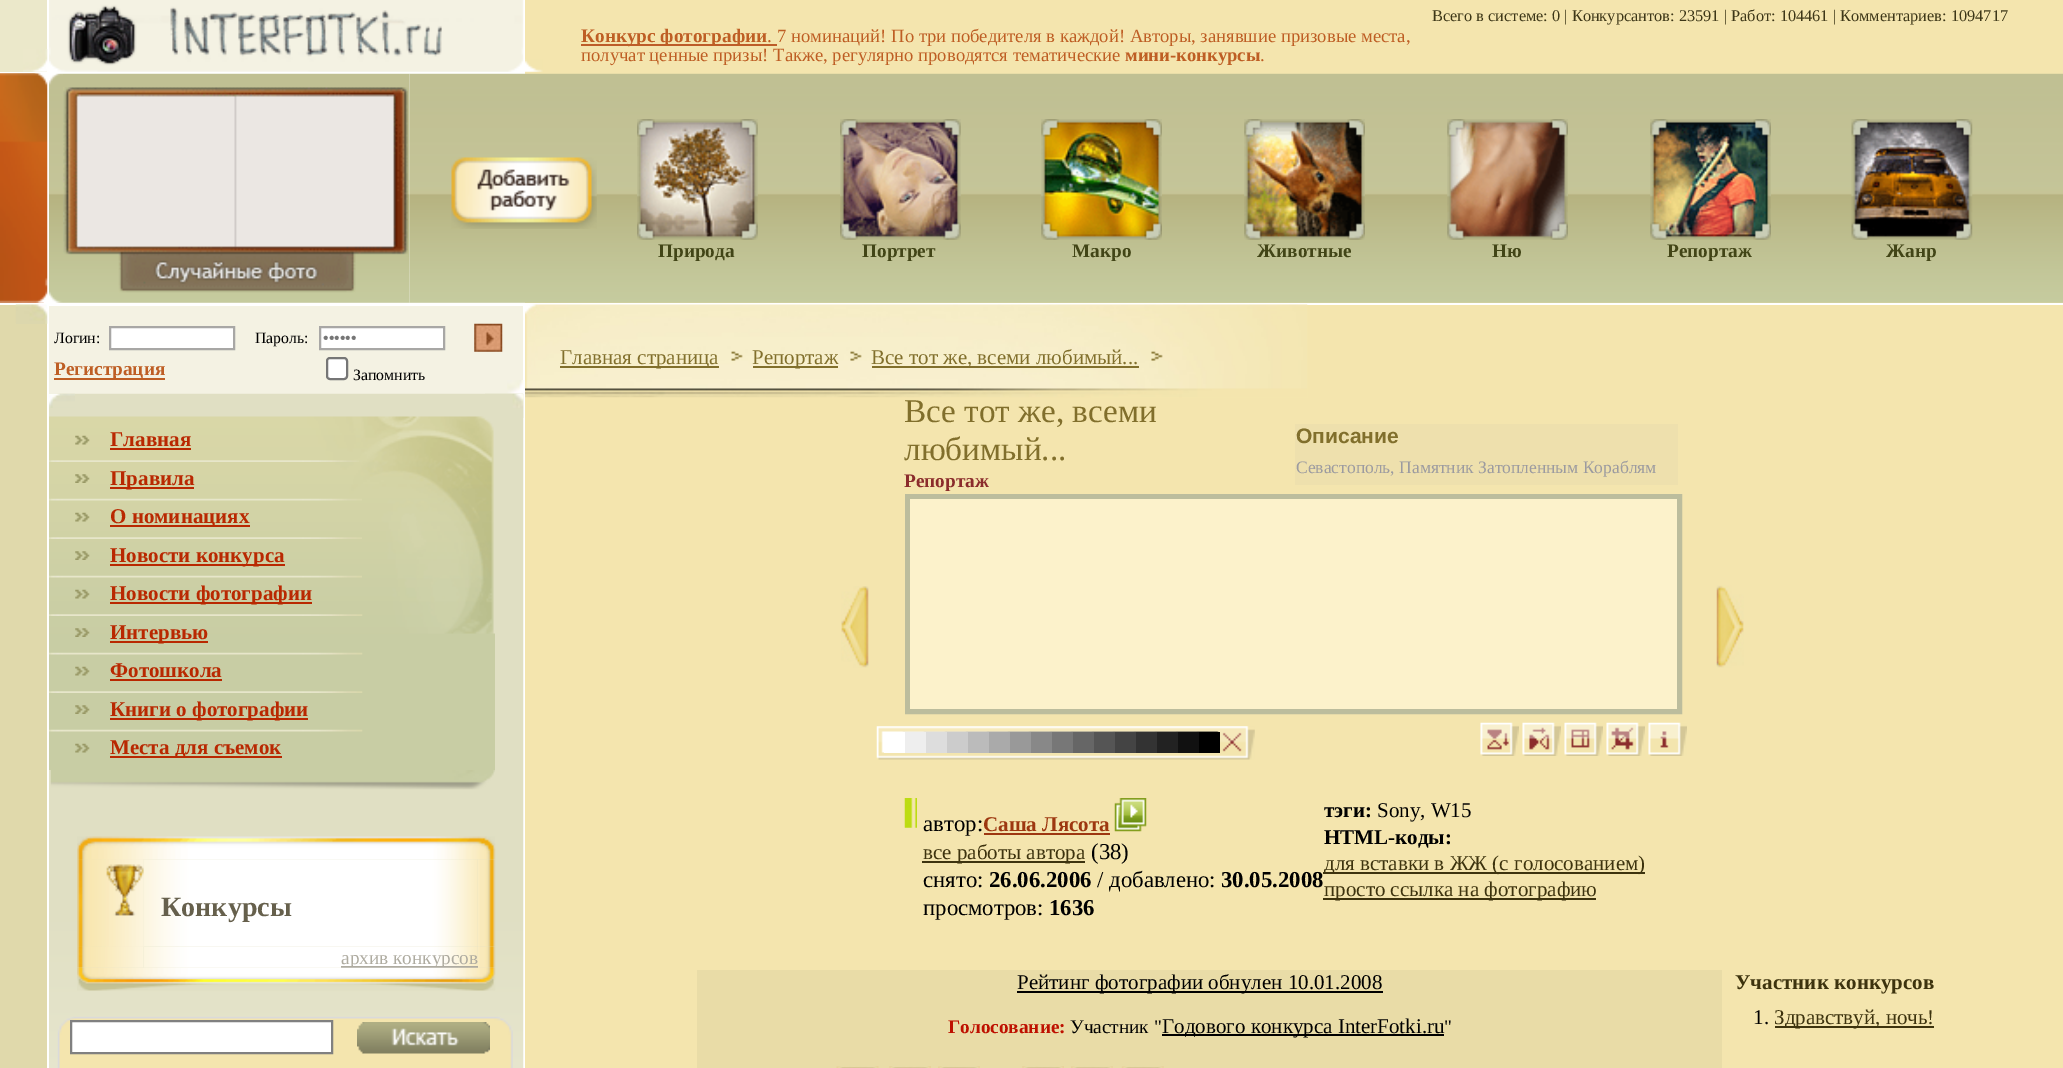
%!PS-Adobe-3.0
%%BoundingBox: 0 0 2063 1068
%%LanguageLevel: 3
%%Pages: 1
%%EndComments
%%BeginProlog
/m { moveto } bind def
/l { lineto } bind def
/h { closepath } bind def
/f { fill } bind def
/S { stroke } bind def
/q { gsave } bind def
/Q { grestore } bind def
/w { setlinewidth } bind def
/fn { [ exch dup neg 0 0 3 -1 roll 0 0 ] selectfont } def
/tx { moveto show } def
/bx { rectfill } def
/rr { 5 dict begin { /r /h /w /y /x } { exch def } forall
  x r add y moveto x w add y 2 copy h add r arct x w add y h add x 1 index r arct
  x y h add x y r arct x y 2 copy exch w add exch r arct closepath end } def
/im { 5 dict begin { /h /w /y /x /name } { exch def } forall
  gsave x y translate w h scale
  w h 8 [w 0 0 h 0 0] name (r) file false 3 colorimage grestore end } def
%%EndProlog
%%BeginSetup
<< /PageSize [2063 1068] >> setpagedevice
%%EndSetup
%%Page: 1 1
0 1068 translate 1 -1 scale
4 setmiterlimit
1 setgray
0 0 2063 1068 bx
0.878 0.851 0.671 setrgbcolor
0 305 47 763 bx
0.922 0.91 0.792 setrgbcolor
0 0 47 72 bx
(image0.raw) 23 49 25 23 im
(image1.raw) 0 73 44 230 im
(image2.raw) 0 73 48 230 im
(image3.raw) 15 304 33 20 im
(image4.raw) 49 0 475 72 im
(image5.raw) 523 306 1 15 im
0.957 0.949 0.89 setrgbcolor
49 306 474 88 bx
(image6.raw) 507 380 17 14 im
/LiberationSerif-Regular 15.75 fn
0 setgray
(Логин:) 54 343 tx
1 setgray
110 327 m 234 327 l 234 349 l 110 349 l h q f Q
0.659 0.655 0.647 setrgbcolor
2 w
S
0 setgray
(Пароль:) 255 343 tx
1 setgray
320 327 m 444 327 l 444 349 l 320 349 l h q f Q
0.659 0.655 0.647 setrgbcolor
S
/LiberationSans-Regular 15.75 fn
0.463 setgray
(••••••) 323 343 tx
(image7.raw) 474 323 29 29 im
0.745 0.369 0.141 setrgbcolor
54 378 111 2 bx
/LiberationSerif-Bold 19.25 fn
(Регистрация) 54 375 tx
1 setgray
327 358 20 21 3 rr q f Q
0.463 setgray
S
/LiberationSerif-Regular 15.75 fn
0 setgray
(Запомнить) 353 380 tx
(image8.raw) 49 393 475 675 im
(image9.raw) 485 393 39 25 im
(image10.raw) 49 393 26 15 im
0.784 0.804 0.643 setrgbcolor
49 633 446 137 bx
(image11.raw) 49 415 446 219 im
(image12.raw) 49 460 310 2 im
(image13.raw) 75 435 15 10 im
/LiberationSerif-Bold 21 fn
0.725 0.157 0.004 setrgbcolor
(Главная) 110 446 tx
110 448 81 2 bx
(image14.raw) 49 498 313 3 im
(image15.raw) 75 474 15 9 im
110 487 84 2 bx
(Правила) 110 485 tx
(image16.raw) 49 537 313 2 im
(image17.raw) 75 512 15 10 im
110 525 140 2 bx
(О номинациях) 110 523 tx
(image18.raw) 49 575 313 3 im
(image19.raw) 75 551 15 9 im
110 564 175 2 bx
(Новости конкурса) 110 562 tx
(image20.raw) 49 614 314 2 im
(image21.raw) 75 589 15 10 im
110 602 202 2 bx
(Новости фотографии) 110 600 tx
(image22.raw) 49 652 314 3 im
(image23.raw) 75 628 15 9 im
110 641 98 2 bx
(Интервью) 110 639 tx
(image24.raw) 49 691 314 2 im
(image25.raw) 75 666 15 10 im
(Фотошкола) 110 677 tx
110 679 112 2 bx
(image22.raw) 49 729 314 3 im
(image26.raw) 75 705 15 9 im
110 718 198 2 bx
(Книги о фотографии) 110 716 tx
(image25.raw) 75 743 15 10 im
110 756 172 2 bx
(Места для съемок) 110 754 tx
(image27.raw) 50 770 445 20 im
(image28.raw) 77 836 419 24 im
(image29.raw) 77 859 67 88 im
(image31.raw) 143 859 335 88 im
(image33.raw) 77 946 67 22 im
(image30.raw) 77 859 67 88 im
/LiberationSerif-Bold 28 fn
0.4 0.376 0.298 setrgbcolor
(Конкурсы) 161 916 tx
(image32.raw) 478 859 18 88 im
(image34.raw) 143 947 335 21 im
0.682 0.671 0.627 setrgbcolor
341 966 137 2 bx
/LiberationSerif-Regular 19.25 fn
(архив конкурсов) 341 964 tx
(image35.raw) 478 946 18 22 im
(image36.raw) 77 967 419 24 im
(image37.raw) 57 1016 456 52 im
1 setgray
71 1021 m 332 1021 l 332 1053 l 71 1053 l h q f Q
0.502 setgray
S
(image38.raw) 357 1022 133 32 im
0.957 0.898 0.682 setrgbcolor
525 0 1538 1068 bx
(image39.raw) 525 59 18 13 im
/LiberationSerif-Regular 16.35 fn
0.239 0.216 0.094 setrgbcolor
(Всего в системе: 0 | Конкурсантов: 23591 | Работ: 104461 | Комментариев: 1094717) 1432 21 tx
0.741 0.361 0.161 setrgbcolor
581 44 196 2 bx
/LiberationSerif-Bold 19.25 fn
0.745 0.369 0.141 setrgbcolor
(Конкурс фотографии) 581 42 tx
/LiberationSerif-Regular 19.25 fn
(.) 767 42 tx
/LiberationSerif-Regular 18.65 fn
(7 номинаций! По три победителя в каждой! Авторы, занявшие призовые места,) 777 42 tx
(получат ценные призы! Также, регулярно проводятся тематические) 581 61 tx
/LiberationSerif-Bold 18.65 fn
(мини-конкурсы) 1125 61 tx
/LiberationSerif-Regular 18.65 fn
(.) 1260 61 tx
(image40.raw) 49 73 14 230 im
(image41.raw) 63 73 347 230 im
(image42.raw) 63 87 345 206 im
(image43.raw) 409 73 228 230 im
(image44.raw) 451 157 146 72 im
(image45.raw) 637 73 1426 230 im
(image46.raw) 637 119 121 121 im
/LiberationSerif-Bold 19.25 fn
0.259 0.271 0.09 setrgbcolor
(Природа) 658 257 tx
(image47.raw) 840 119 121 121 im
(Портрет) 862 257 tx
(image48.raw) 1041 119 121 121 im
(Макро) 1072 257 tx
(image49.raw) 1244 119 121 121 im
(Животные) 1257 257 tx
(image50.raw) 1447 119 121 121 im
(Ню) 1492 257 tx
(image51.raw) 1650 119 121 121 im
(Репортаж) 1667 257 tx
(image52.raw) 1851 119 122 121 im
(Жанр) 1886 257 tx
1 setgray
525 303 1538 2 bx
(image53.raw) 525 304 783 94 im
0.506 0.435 0.173 setrgbcolor
560 366 159 2 bx
/LiberationSerif-Regular 21 fn
(Главная страница) 560 364 tx
(image54.raw) 731 351 12 10 im
753 366 85 2 bx
(Репортаж) 752 364 tx
(image55.raw) 850 351 12 10 im
872 366 267 2 bx
(Все тот же, всеми любимый...) 871 364 tx
(image56.raw) 1151 351 12 10 im
/LiberationSerif-Regular 33.25 fn
(Все тот же, всеми) 904 422 tx
(любимый...) 904 460 tx
/LiberationSerif-Bold 19.25 fn
0.545 0.173 0.173 setrgbcolor
(Репортаж) 904 487 tx
0.933 0.878 0.678 setrgbcolor
1295 424 383 61 bx
/LiberationSans-Bold 21 fn
0.506 0.435 0.173 setrgbcolor
(Описание) 1296 443 tx
/LiberationSerif-Regular 17.5 fn
0.612 0.608 0.627 setrgbcolor
(Севастополь, Памятник Затопленным Кораблям) 1296 473 tx
(image57.raw) 841 586 28 82 im
0.737 0.741 0.616 setrgbcolor
5 w
907.5 496.5 772 215 rectstroke
0.988 0.949 0.796 setrgbcolor
910 499 767 210 bx
(image58.raw) 876 726 379 34 im
1 setgray
884 732 21 21 bx
0.933 setgray
905 732 21 21 bx
0.867 setgray
926 732 21 21 bx
0.8 setgray
947 732 21 21 bx
0.733 setgray
968 732 21 21 bx
0.667 setgray
989 732 21 21 bx
0.6 setgray
1010 732 21 21 bx
0.533 setgray
1031 732 21 21 bx
0.467 setgray
1052 732 21 21 bx
0.4 setgray
1073 732 21 21 bx
0.333 setgray
1094 732 21 21 bx
0.267 setgray
1115 732 21 21 bx
0.2 setgray
1136 732 21 21 bx
0.133 setgray
1157 732 21 21 bx
0.067 setgray
1178 732 21 21 bx
0 setgray
1199 732 21 21 bx
(image59.raw) 1480 722 39 34 im
(image60.raw) 1522 722 39 34 im
(image61.raw) 1564 722 39 34 im
(image62.raw) 1606 722 39 34 im
(image63.raw) 1648 722 39 34 im
(image64.raw) 1716 585 28 83 im
(image65.raw) 904 798 13 30 im
/LiberationSerif-Regular 22.75 fn
(автор:) 923 831 tx
/LiberationSerif-Bold 21 fn
0.616 0.216 0.063 setrgbcolor
(Саша Лясота) 983 831 tx
984 833 126 2 bx
(image66.raw) 1114 798 33 34 im
0.239 0.2 0.055 setrgbcolor
922 861 163 2 bx
/LiberationSerif-Regular 21 fn
(все работы автора) 923 859 tx
/LiberationSerif-Regular 22.75 fn
0 setgray
(\(38\)) 1091 859 tx
(снято:) 923 887 tx
/LiberationSerif-Bold 22.75 fn
(26.06.2006) 989 887 tx
/LiberationSerif-Regular 22.75 fn
(/ добавлено:) 1097 887 tx
/LiberationSerif-Bold 22.75 fn
(30.05.2008) 1221 887 tx
/LiberationSerif-Regular 22.75 fn
(просмотров:) 923 915 tx
/LiberationSerif-Bold 22.75 fn
(1636) 1049 915 tx
/LiberationSerif-Bold 21 fn
(тэги:) 1324 817 tx
/LiberationSerif-Regular 21 fn
(Sony, W15) 1377 817 tx
/LiberationSerif-Bold 21 fn
(HTML-коды:) 1324 844 tx
0.239 0.2 0.055 setrgbcolor
1323 872 322 2 bx
/LiberationSerif-Regular 21 fn
(для вставки в ЖЖ \(с голосованием\)) 1324 870 tx
1323 898 273 2 bx
(просто ссылка на фотографию) 1324 896 tx
0.914 0.863 0.655 setrgbcolor
697 970 1025 98 bx
0 setgray
1017 991 366 2 bx
(Рейтинг фотографии обнулен 10.01.2008) 1017 989 tx
/LiberationSerif-Bold 19.25 fn
0.745 0.063 0 setrgbcolor
(Голосование:) 948 1033 tx
/LiberationSerif-Regular 19.25 fn
0 setgray
(Участник ") 1070 1033 tx
1162 1034 282 2 bx
/LiberationSerif-Regular 21 fn
(Годового конкурса InterFotki.ru) 1162 1033 tx
/LiberationSerif-Regular 19.25 fn
(") 1444 1033 tx
(image67.raw) 836 1066 43 2 im
(image68.raw) 889 1066 42 2 im
(image69.raw) 938 1066 42 2 im
(image70.raw) 1022 1066 42 2 im
(image71.raw) 1071 1066 42 2 im
(image72.raw) 1121 1066 43 2 im
/LiberationSerif-Bold 21 fn
0.239 0.2 0.055 setrgbcolor
(Участник конкурсов) 1735 989 tx
/LiberationSerif-Regular 21 fn
0 setgray
(1.) 1753 1024 tx
0.239 0.2 0.055 setrgbcolor
1775 1026 159 2 bx
(Здравствуй, ночь!) 1774 1024 tx
showpage
%%EOF
